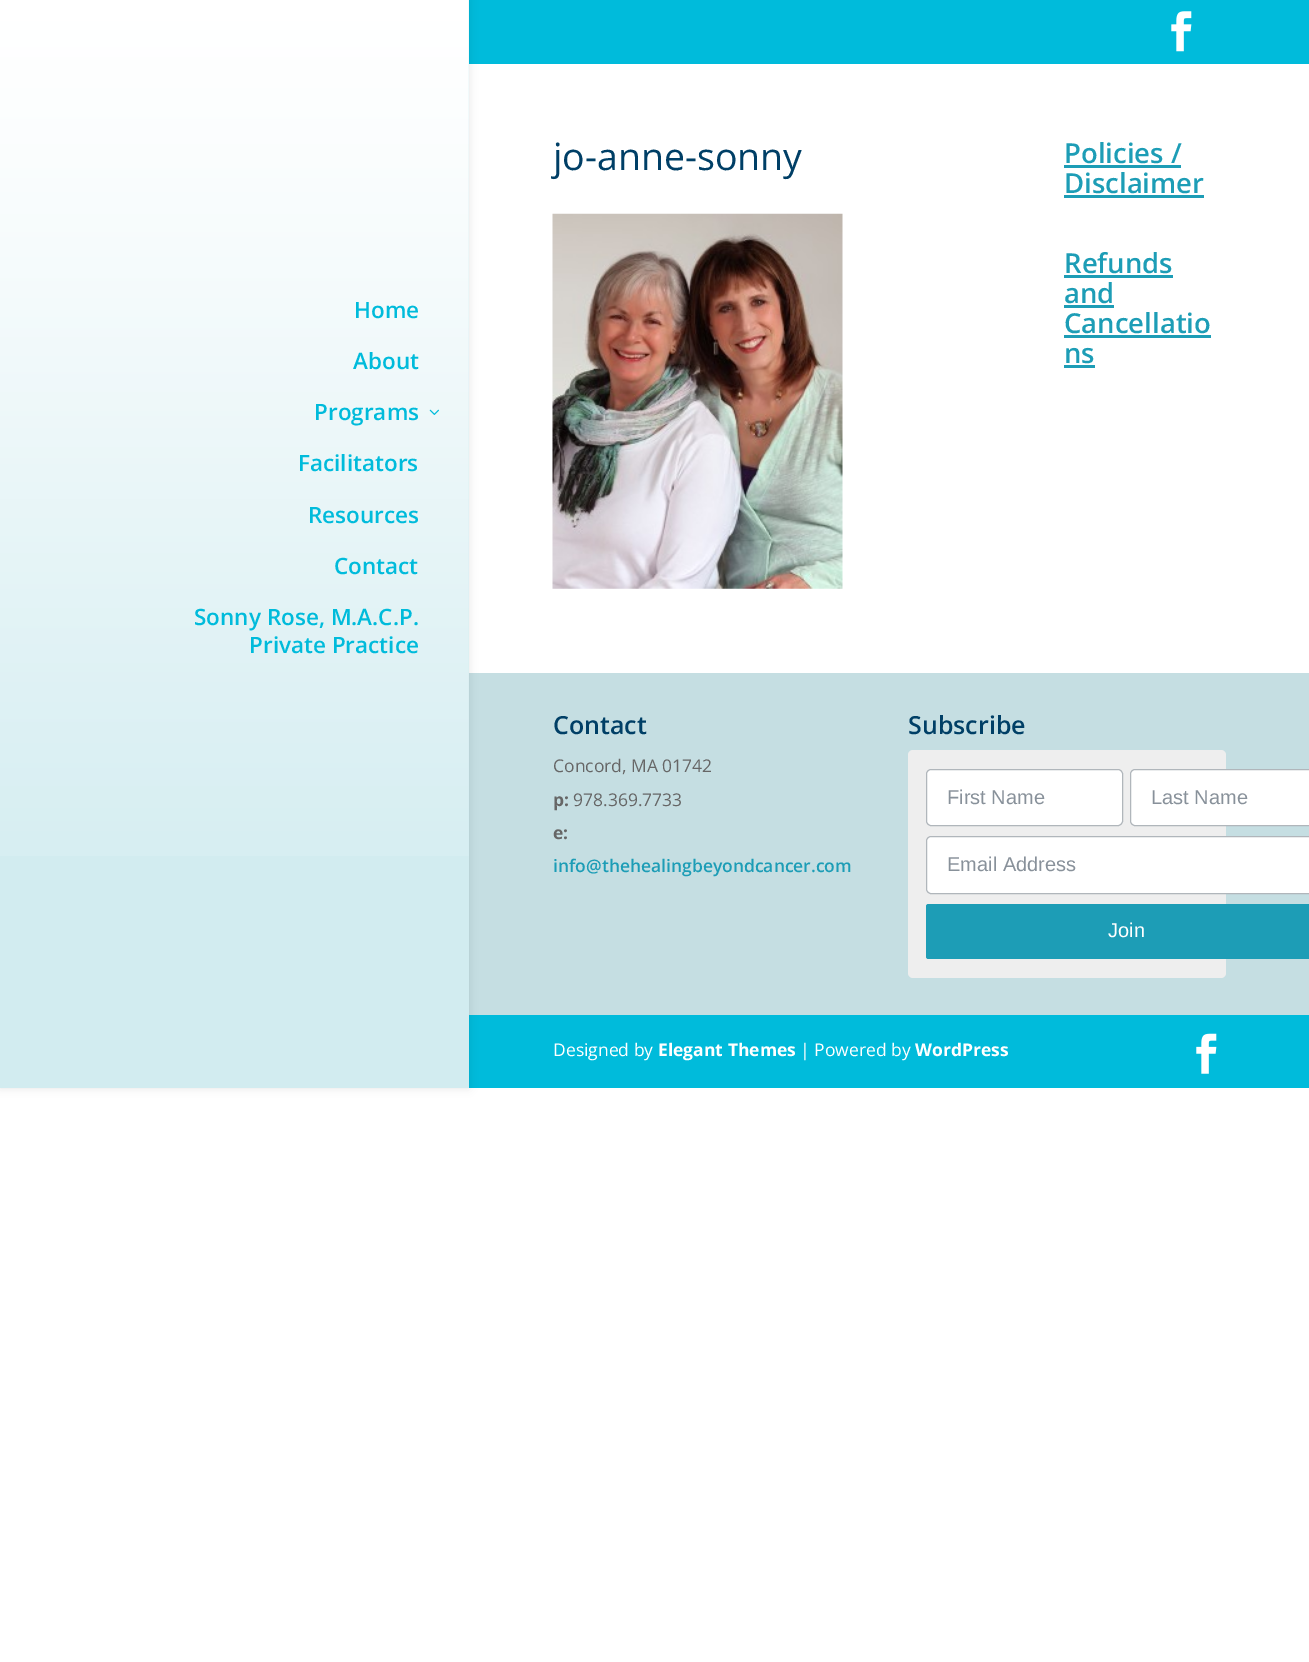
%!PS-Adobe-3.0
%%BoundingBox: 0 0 1309 1662
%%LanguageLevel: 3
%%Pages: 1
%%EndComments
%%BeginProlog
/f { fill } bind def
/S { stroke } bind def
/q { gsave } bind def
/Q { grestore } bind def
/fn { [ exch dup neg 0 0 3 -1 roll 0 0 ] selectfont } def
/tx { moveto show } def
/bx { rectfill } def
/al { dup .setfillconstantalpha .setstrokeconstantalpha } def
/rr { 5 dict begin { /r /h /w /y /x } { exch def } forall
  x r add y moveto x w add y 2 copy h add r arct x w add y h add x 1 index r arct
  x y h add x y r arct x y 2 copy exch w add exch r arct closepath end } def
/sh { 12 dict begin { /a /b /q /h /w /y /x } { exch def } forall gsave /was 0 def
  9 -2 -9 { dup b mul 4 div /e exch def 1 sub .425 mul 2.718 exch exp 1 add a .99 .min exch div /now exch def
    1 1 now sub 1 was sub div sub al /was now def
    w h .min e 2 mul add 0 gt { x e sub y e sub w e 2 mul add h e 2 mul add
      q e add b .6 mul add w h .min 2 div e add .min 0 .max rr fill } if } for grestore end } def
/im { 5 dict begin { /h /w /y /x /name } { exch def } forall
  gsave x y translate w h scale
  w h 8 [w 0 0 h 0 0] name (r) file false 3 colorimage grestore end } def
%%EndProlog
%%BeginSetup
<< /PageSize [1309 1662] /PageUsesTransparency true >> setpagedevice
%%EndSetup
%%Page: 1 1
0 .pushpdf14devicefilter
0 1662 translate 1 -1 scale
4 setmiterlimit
1 setgray
0 0 1309 1662 bx
0 0.733 0.859 setrgbcolor
469 0 840 64 bx
(image0.raw) 1171 11 21 41 im
0.773 0.871 0.886 setrgbcolor
469 673 840 342 bx
0 0.733 0.859 setrgbcolor
469 1015 840 73 bx
0 setgray
0 0 469 1088 0 4.5 0.1 sh
0.824 0.925 0.941 setrgbcolor
0 0 469 1088 bx
(image1.raw) 0 0 469 856 im
/OpenSans-SemiBold 22.5 fn
0 0.733 0.859 setrgbcolor
(Home) 354 318 tx
(About) 353 369 tx
(Programs) 314 420 tx
(image2.raw) 429 409 10 6 im
(Facilitators) 298 471 tx
(Resources) 308 523 tx
(Contact) 334 574 tx
(Sonny Rose, M.A.C.P.) 194 625 tx
(Private Practice) 249 653 tx
/OpenSans-Regular 37.5 fn
0 0.247 0.4 setrgbcolor
(jo-anne-sonny) 553 170 tx
(image3.raw) 552 213 291 376 im
/OpenSans-SemiBold 27.5 fn
0.114 0.616 0.714 setrgbcolor
(Policies /) 1064 163 tx
1064 165 117 3 bx
(Disclaimer) 1064 193 tx
1064 195 140 3 bx
(Refunds) 1064 273 tx
1064 275 109 3 bx
(and) 1064 303 tx
1064 305 50 3 bx
(Cancellatio) 1064 333 tx
1064 335 147 3 bx
(ns) 1064 363 tx
1064 365 31 3 bx
/OpenSans-SemiBold 25 fn
0 0.247 0.4 setrgbcolor
(Contact) 553 734 tx
/OpenSans-Regular 17.5 fn
0.4 setgray
(Concord, MA 01742) 553 772 tx
/OpenSans-Bold 17.5 fn
(p:) 553 806 tx
/OpenSans-Regular 17.5 fn
(978.369.7733) 573 806 tx
/OpenSans-Bold 17.5 fn
(e:) 553 839 tx
/OpenSans-SemiBold 17.5 fn
0.114 0.616 0.714 setrgbcolor
(info@thehealingbeyondcancer.com) 553 872 tx
/OpenSans-SemiBold 25 fn
0 0.247 0.4 setrgbcolor
(Subscribe) 908 734 tx
0.933 setgray
908 750 318 228 5 rr f
1 setgray
926.5 769.5 196 56 4.5 rr q f Q
0.69 0.714 0.733 setrgbcolor
S
/LiberationSans-Regular 20 fn
0.533 0.569 0.604 setrgbcolor
(First Name) 947 804 tx
1 setgray
1130.5 769.5 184 56 4.5 rr q f Q
0.69 0.714 0.733 setrgbcolor
S
0.533 0.569 0.604 setrgbcolor
(Last Name) 1151 804 tx
1 setgray
926.5 836.5 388 57 4.5 rr q f Q
0.69 0.714 0.733 setrgbcolor
S
0.533 0.569 0.604 setrgbcolor
(Email Address) 947 871 tx
0.114 0.616 0.714 setrgbcolor
926 904 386 55 2.5 rr f
1 setgray
(Join) 1108 937 tx
/OpenSans-Regular 17.5 fn
(Designed by) 553 1056 tx
/OpenSans-Bold 17.5 fn
(Elegant Themes) 658 1056 tx
/OpenSans-Regular 17.5 fn
(| Powered by) 800 1056 tx
/OpenSans-Bold 17.5 fn
(WordPress) 915 1056 tx
(image4.raw) 1196 1033 21 41 im
.poppdf14devicefilter showpage
%%EOF
